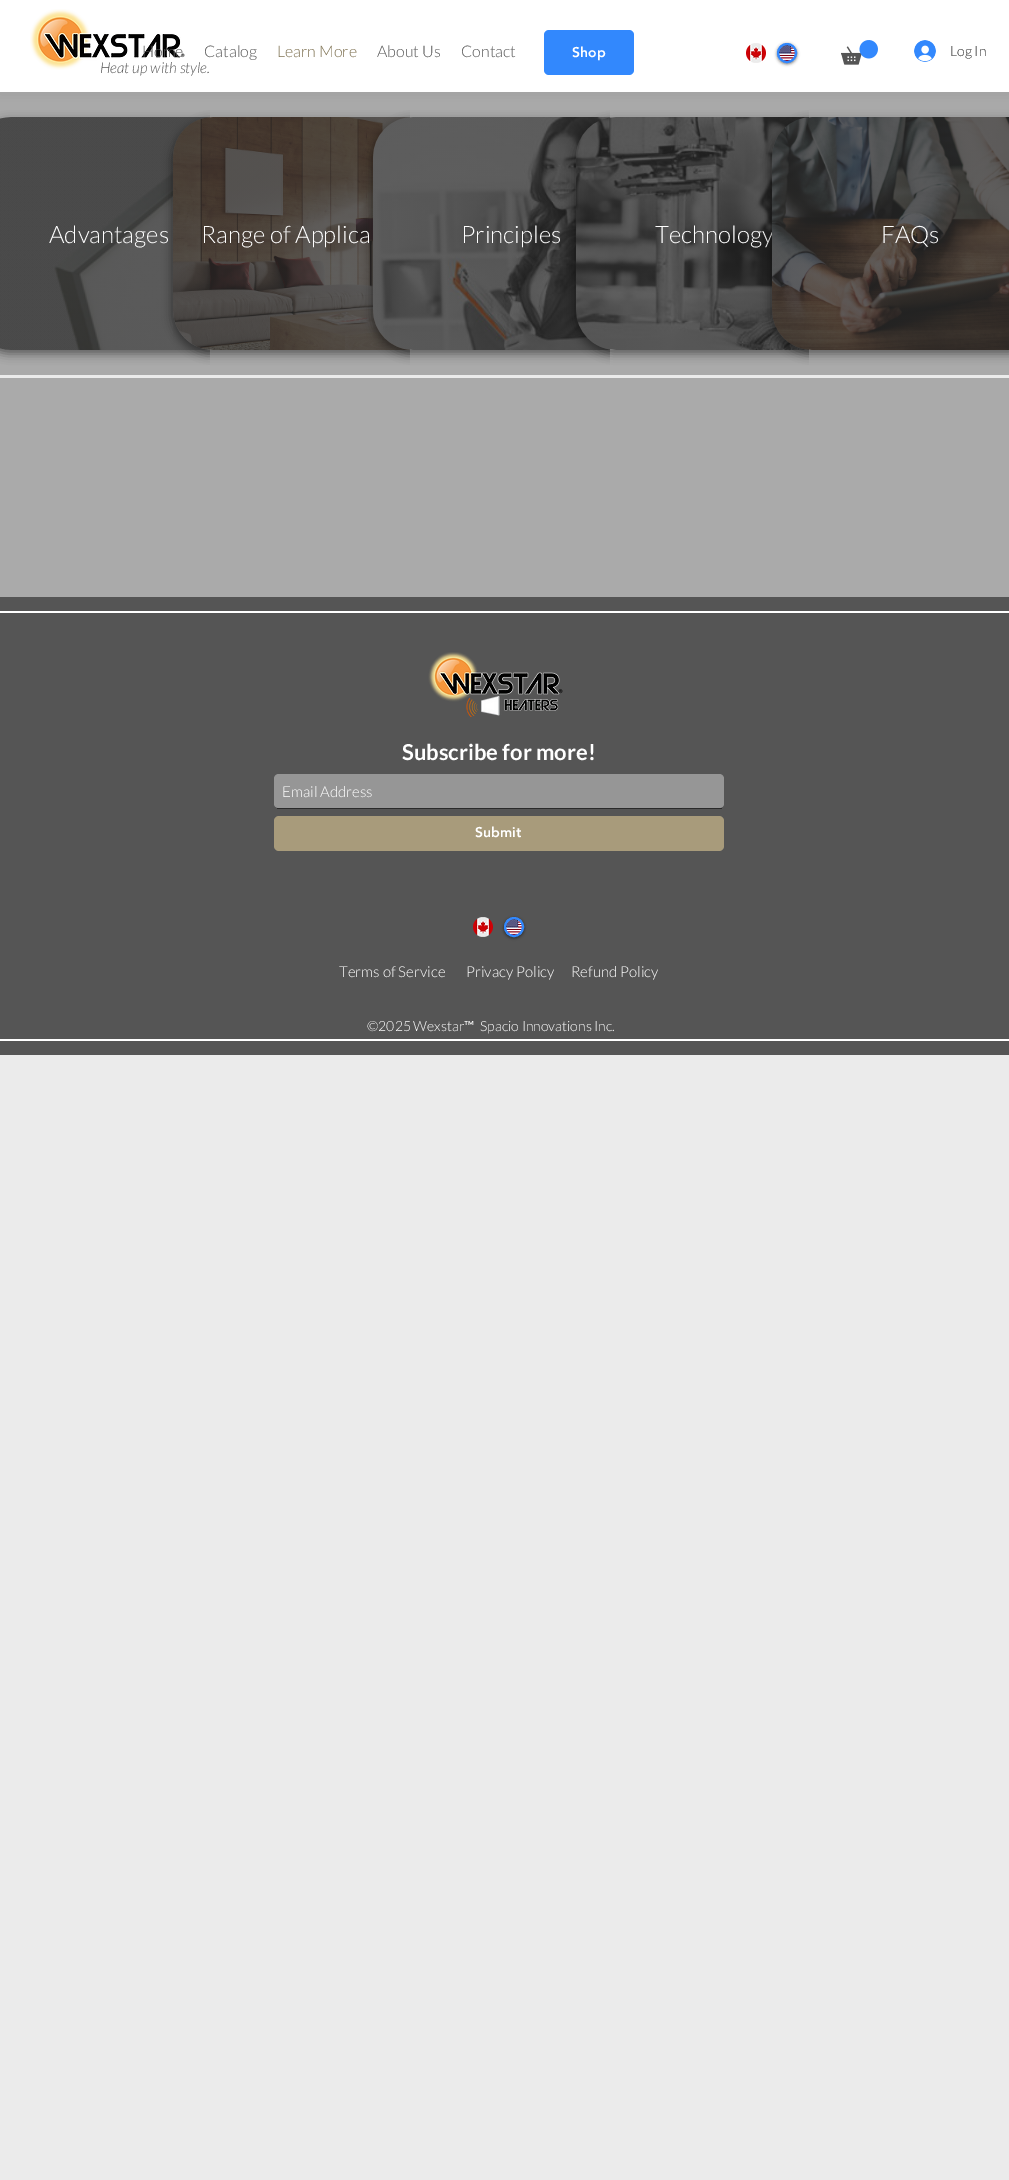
%!PS-Adobe-3.0
%%BoundingBox: 0 0 1009 2180
%%LanguageLevel: 3
%%Pages: 1
%%EndComments
%%BeginProlog
/m { moveto } bind def
/l { lineto } bind def
/c { curveto } bind def
/h { closepath } bind def
/f { fill } bind def
/S { stroke } bind def
/q { gsave } bind def
/Q { grestore } bind def
/w { setlinewidth } bind def
/fn { [ exch dup neg 0 0 3 -1 roll 0 0 ] selectfont } def
/tx { moveto show } def
/bx { rectfill } def
/al { dup .setfillconstantalpha .setstrokeconstantalpha } def
/ci { newpath 0 360 arc closepath } def
/rr { 5 dict begin { /r /h /w /y /x } { exch def } forall
  x r add y moveto x w add y 2 copy h add r arct x w add y h add x 1 index r arct
  x y h add x y r arct x y 2 copy exch w add exch r arct closepath end } def
/sh { 12 dict begin { /a /b /q /h /w /y /x } { exch def } forall gsave /was 0 def
  9 -2 -9 { dup b mul 4 div /e exch def 1 sub .425 mul 2.718 exch exp 1 add a .99 .min exch div /now exch def
    1 1 now sub 1 was sub div sub al /was now def
    w h .min e 2 mul add 0 gt { x e sub y e sub w e 2 mul add h e 2 mul add
      q e add b .6 mul add w h .min 2 div e add .min 0 .max rr fill } if } for grestore end } def
/im { 5 dict begin { /h /w /y /x /name } { exch def } forall
  gsave x y translate w h scale
  w h 8 [w 0 0 h 0 0] name (r) file false 3 colorimage grestore end } def
%%EndProlog
%%BeginSetup
<< /PageSize [1009 2180] /PageUsesTransparency true >> setpagedevice
%%EndSetup
%%Page: 1 1
0 .pushpdf14devicefilter
0 2180 translate 1 -1 scale
4 setmiterlimit
0.922 setgray
0 0 1009 2180 bx
0.667 setgray
0 92 210 283 bx
q
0 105 m 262 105 l 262 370 l 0 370 l h 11 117 m 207 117 l 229 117 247 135 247 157 c 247 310 l 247 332 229 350 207 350 c 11 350 l -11 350 -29 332 -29 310 c -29 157 l -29 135 -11 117 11 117 c h eoclip newpath
0 setgray
-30 121 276 233 40 5 0.46 sh
Q
210 92 200 283 bx
(image5.raw) 0 117 210 233 im
0 setgray
172 121 276 233 40 5 0.46 sh
0.667 setgray
410 92 200 283 bx
(image6.raw) 173 117 237 233 im
0 setgray
372 121 276 233 40 5 0.46 sh
0.667 setgray
610 92 199 283 bx
(image7.raw) 373 117 237 233 im
0 setgray
575 121 276 233 40 5 0.46 sh
0.667 setgray
809 92 200 283 bx
0.165 setgray
-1 0 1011 94 0 7 0.1 sh
1 setgray
0 0 1009 92 bx
(image4.raw) 30 9 155 61 im
/Lato-Light 16 fn
0.333 setgray
(Home) 142 57 tx
(Catalog) 204 57 tx
0.49 0.439 0.314 setrgbcolor
(Learn More) 277 57 tx
0.333 setgray
(About Us) 377 57 tx
(Contact) 461 57 tx
0.196 0.533 0.992 setrgbcolor
544 30 90 45 5 rr f
/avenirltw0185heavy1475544-Black 14 fn
1 setgray
(Shop) 572 57 tx
(image0.raw) 746 43 20 20 im
0 setgray
777 44 20 20 10 1.5 0.5 sh
0.196 0.533 0.992 setrgbcolor
787 53 9 ci q f Q
2 w
S
(image1.raw) 779 45 16 16 im
(image2.raw) 841 40 37 25 im
(image3.raw) 914 40 22 22 im
/Lato-Light 14 fn
0.165 setgray
(Log In) 950 56 tx
/Lato-LightItalic 15 fn
0.333 setgray
(Heat up with style.) 100 73 tx
/Lato-Light 24 fn
1 setgray
(Advantages) 49 243 tx
(Range of Applica) 201 243 tx
(Principles) 461 243 tx
(image8.raw) 576 117 233 233 im
(Technology) 655 243 tx
0 setgray
771 121 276 233 40 5 0.46 sh
(image9.raw) 772 117 237 233 im
1 setgray
(FAQs) 881 243 tx
0.667 setgray
0 378 1009 219 bx
0.333 setgray
0 597 1009 458 bx
1 setgray
0 611 1009 2 bx
0 1039 1009 2 bx
(image10.raw) 428 652 135 65 im
/Lato-Bold 22 fn
(Subscribe for more!) 402 760 tx
0.588 setgray
279 774 m 719 774 l 722 774 724 776 724 779 c 724 804 l 724 806 722 808 719 808 c 279 808 l 276 808 274 806 274 804 c 274 779 l 274 776 276 774 279 774 c h f
0.165 setgray
277 808 445 1 bx
/Lato-Light 15 fn
1 setgray
(Email Address) 282 797 tx
0.659 0.608 0.482 setrgbcolor
274 816 450 35 5 rr f
/avenirltw0185heavy1475544-Black 14 fn
1 setgray
(Submit) 475 837 tx
(image11.raw) 473 917 20 20 im
0 setgray
504 918 20 20 10 1.5 0.5 sh
0.196 0.533 0.992 setrgbcolor
514 927 9 ci q f Q
S
(image12.raw) 506 919 16 16 im
/Lato-Light 15 fn
1 setgray
(Terms of Service) 339 977 tx
(Privacy Policy) 466 977 tx
(Refund Policy) 571 977 tx
/Lato-Light 14 fn
(©2025 Wexstar) 367 1031 tx
/Lato-Regular 14 fn
(™) 464 1031 tx
/Lato-Light 14 fn
(Spacio Innovations Inc.) 480 1031 tx
.poppdf14devicefilter showpage
%%EOF
